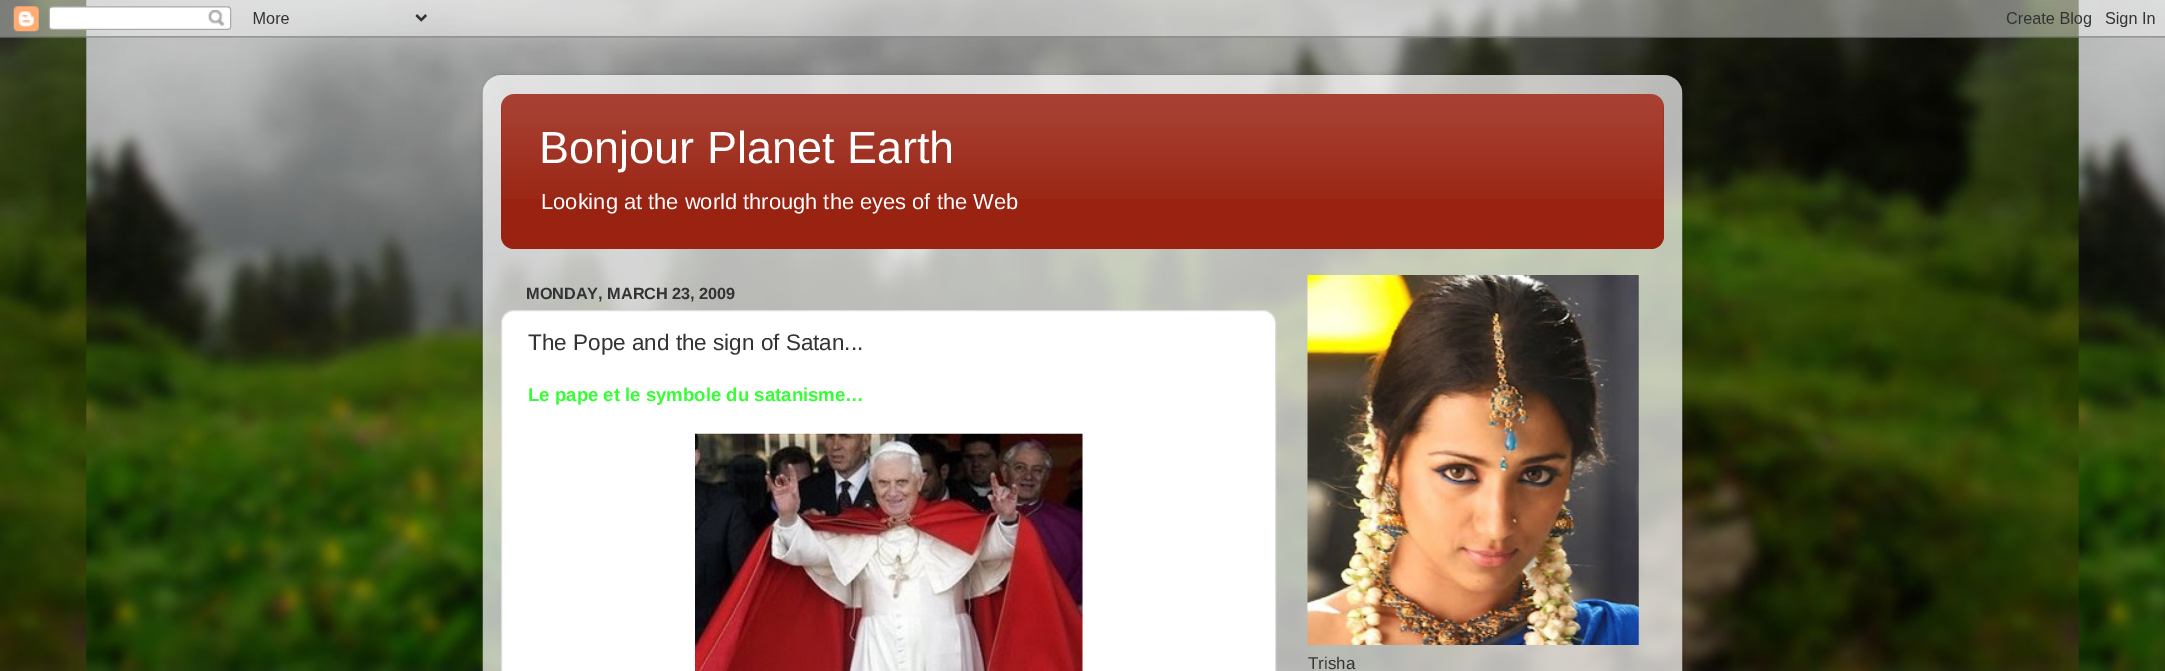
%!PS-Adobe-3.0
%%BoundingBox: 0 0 2165 671
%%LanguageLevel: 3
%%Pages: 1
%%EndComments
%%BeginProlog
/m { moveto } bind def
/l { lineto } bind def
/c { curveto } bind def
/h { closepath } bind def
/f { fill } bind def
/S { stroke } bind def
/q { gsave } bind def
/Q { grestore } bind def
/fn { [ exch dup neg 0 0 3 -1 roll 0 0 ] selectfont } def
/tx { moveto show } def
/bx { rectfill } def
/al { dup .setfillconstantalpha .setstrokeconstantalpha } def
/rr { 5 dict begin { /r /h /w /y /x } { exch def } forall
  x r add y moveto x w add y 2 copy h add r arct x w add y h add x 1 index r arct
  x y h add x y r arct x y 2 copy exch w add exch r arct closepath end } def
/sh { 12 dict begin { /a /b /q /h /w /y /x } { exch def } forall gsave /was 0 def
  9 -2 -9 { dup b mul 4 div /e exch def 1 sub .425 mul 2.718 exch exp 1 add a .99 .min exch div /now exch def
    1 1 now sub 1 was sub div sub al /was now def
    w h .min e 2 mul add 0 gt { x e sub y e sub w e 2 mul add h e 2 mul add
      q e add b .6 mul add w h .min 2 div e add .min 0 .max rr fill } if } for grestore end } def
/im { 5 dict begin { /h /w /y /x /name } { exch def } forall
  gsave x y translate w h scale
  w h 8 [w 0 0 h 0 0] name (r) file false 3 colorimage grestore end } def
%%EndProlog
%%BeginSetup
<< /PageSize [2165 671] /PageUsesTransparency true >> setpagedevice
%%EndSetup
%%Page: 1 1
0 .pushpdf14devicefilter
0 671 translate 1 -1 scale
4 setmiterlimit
1 setgray
0 0 2165 671 bx
(image0.raw) 0 0 2165 671 im
(image1.raw) 0 0 2165 38 im
q
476 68 m 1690 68 l 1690 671 l 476 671 l h 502 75 m 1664 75 l 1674.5 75 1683 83.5 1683 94 c 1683 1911 l 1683 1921.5 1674.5 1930 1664 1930 c 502 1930 l 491.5 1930 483 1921.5 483 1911 c 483 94 l 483 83.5 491.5 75 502 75 c h eoclip newpath
0 setgray
483 75 1200 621 19 2 0.15 sh
Q
(image2.raw) 482 75 1201 596 im
0.6 0.133 0.067 setrgbcolor
501 94 1163 155 13 rr f
(image3.raw) 501 94 1163 105 im
/LiberationSans-Regular 45 fn
1 setgray
(Bonjour Planet Earth) 539 163 tx
/LiberationSans-Regular 21.9 fn
(Looking at the world through the eyes of the Web) 541 209 tx
/LiberationSans-Bold 16.25 fn
0.2 setgray
(MONDAY, MARCH 23, 2009) 526 299 tx
1 setgray
501.5 310.5 774 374 12.5 rr q f Q
0.867 setgray
S
/LiberationSans-Regular 22.5 fn
0.2 setgray
(The Pope and the sign of Satan...) 528 350 tx
/LiberationSans-Bold 18.6 fn
0.2 1 0.2 setrgbcolor
(Le pape et le symbole du satanisme…) 528 401 tx
(image4.raw) 695 433 388 238 im
(image5.raw) 1307 275 332 370 im
/LiberationSans-Regular 17 fn
0.2 setgray
(Trisha) 1308 669 tx
.poppdf14devicefilter showpage
%%EOF
